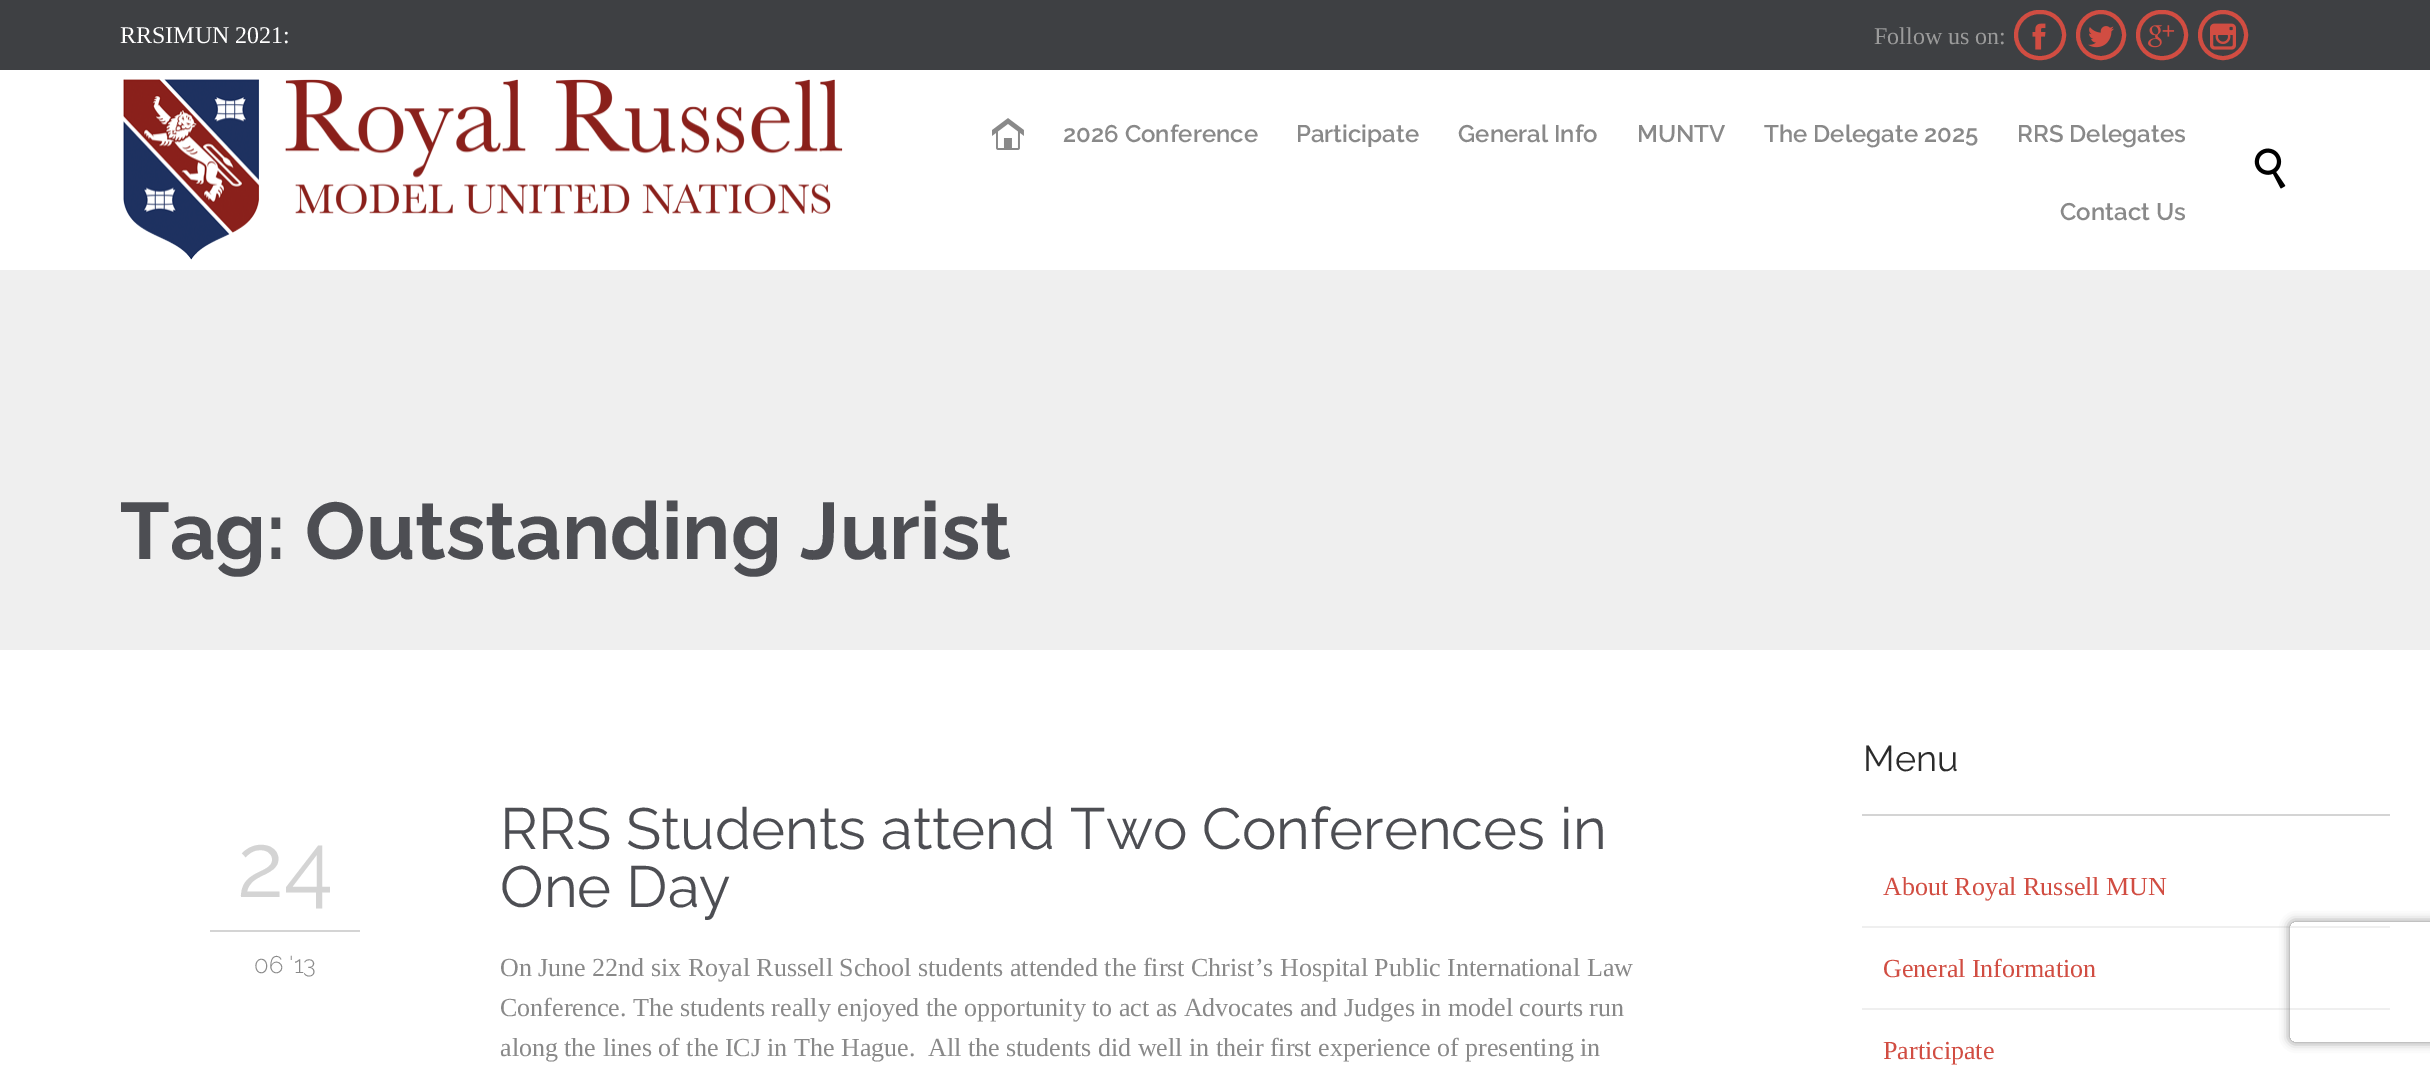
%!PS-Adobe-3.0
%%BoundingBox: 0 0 2430 1069
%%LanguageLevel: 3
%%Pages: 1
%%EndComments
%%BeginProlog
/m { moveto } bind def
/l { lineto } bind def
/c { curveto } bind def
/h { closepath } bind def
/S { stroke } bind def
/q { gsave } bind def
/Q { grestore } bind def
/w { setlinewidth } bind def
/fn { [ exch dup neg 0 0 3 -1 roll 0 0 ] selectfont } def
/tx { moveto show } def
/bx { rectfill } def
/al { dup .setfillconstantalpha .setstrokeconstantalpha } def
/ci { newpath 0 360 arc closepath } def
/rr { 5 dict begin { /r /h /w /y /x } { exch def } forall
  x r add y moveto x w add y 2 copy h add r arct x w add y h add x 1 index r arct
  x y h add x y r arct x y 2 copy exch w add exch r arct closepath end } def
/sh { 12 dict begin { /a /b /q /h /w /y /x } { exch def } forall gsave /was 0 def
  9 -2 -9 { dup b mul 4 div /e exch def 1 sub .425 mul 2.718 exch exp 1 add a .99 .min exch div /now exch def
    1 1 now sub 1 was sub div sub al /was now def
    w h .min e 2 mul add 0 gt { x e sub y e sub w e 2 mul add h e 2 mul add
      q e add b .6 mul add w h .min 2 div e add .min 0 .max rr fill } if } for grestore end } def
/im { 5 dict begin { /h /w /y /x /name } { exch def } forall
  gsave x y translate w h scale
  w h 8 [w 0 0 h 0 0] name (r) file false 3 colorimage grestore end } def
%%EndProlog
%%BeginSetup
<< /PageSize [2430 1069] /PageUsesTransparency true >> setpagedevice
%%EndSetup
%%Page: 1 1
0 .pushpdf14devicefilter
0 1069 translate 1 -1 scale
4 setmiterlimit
0.937 setgray
0 0 2430 1069 bx
1 setgray
0 70 2430 200 bx
0.243 0.251 0.263 setrgbcolor
0 0 2430 70 bx
/LiberationSerif-Regular 24 fn
1 setgray
(RRSIMUN 2021:) 120 43 tx
0.608 setgray
(Follow us on:) 1874 44 tx
0.82 0.302 0.259 setrgbcolor
4 w
2016 12 48 46 23 rr S
(image0.raw) 2032 23 14 27 im
2101 35 23 ci S
(image1.raw) 2088 26 26 22 im
2138 12 48 46 23 rr S
(image2.raw) 2148 25 27 23 im
2223 35 23 ci S
(image3.raw) 2210 23 26 27 im
(image4.raw) 123 79 720 181 im
(image5.raw) 992 118 32 32 im
/Raleway-SemiBold 24 fn
0.537 setgray
(2026 Conference) 1063 142 tx
(Participate) 1296 142 tx
(General Info) 1458 142 tx
(MUNTV) 1637 142 tx
(The Delegate 2025) 1764 142 tx
(RRS Delegates) 2017 142 tx
(Contact Us) 2060 220 tx
(image6.raw) 2254 148 32 41 im
/Raleway-Bold 80 fn
0.302 0.306 0.325 setrgbcolor
(Tag: Outstanding Jurist) 120 559 tx
1 setgray
0 650 2430 419 bx
0.831 setgray
210 930 150 2 bx
/Raleway-Regular 90 fn
(24) 237 897 tx
/Raleway-Light 24 fn
0.537 setgray
(06 '13) 254 973 tx
/Raleway-Regular 58 fn
0.302 0.306 0.325 setrgbcolor
(RRS Students attend Two Conferences in) 500 849 tx
(One Day) 500 907 tx
/LiberationSerif-Regular 26 fn
0.537 setgray
(On June 22nd six Royal Russell School students attended the first Christ’s Hospital Public International Law) 500 976 tx
(Conference. The students really enjoyed the opportunity to act as Advocates and Judges in model courts run) 500 1016 tx
(along the lines of the ICJ in The Hague.  All the students did well in their first experience of presenting in) 500 1056 tx
0.831 setgray
1862 814 528 2 bx
/Raleway-Regular 36 fn
0.169 setgray
(Menu) 1863 771 tx
0.937 setgray
1862 926 528 2 bx
/LiberationSerif-Regular 26 fn
0.82 0.302 0.259 setrgbcolor
(About Royal Russell MUN) 1883 895 tx
0.937 setgray
1862 1008 528 2 bx
0.82 0.302 0.259 setrgbcolor
(General Information) 1883 977 tx
(Participate) 1883 1059 tx
q
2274 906 m 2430 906 l 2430 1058 l 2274 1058 l h 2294 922 m 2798 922 l 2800 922 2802 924 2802 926 c 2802 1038 l 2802 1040 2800 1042 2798 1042 c 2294 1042 l 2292 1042 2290 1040 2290 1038 c 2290 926 l 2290 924 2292 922 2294 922 c h eoclip newpath
0.502 setgray
2290 922 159 120 4 5 1 sh
Q
.poppdf14devicefilter showpage
%%EOF
